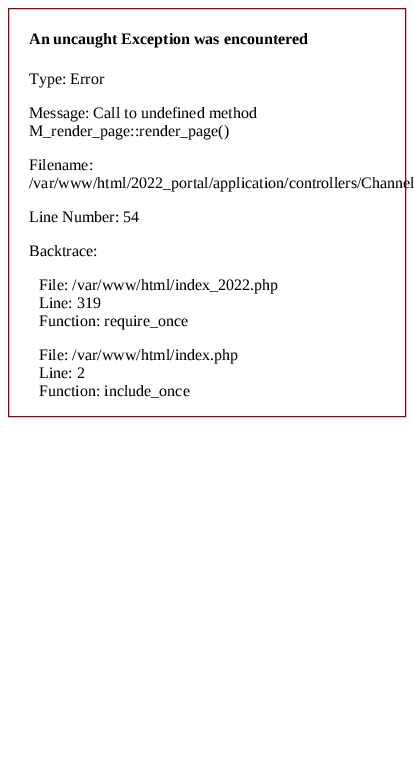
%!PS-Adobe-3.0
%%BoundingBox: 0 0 414 776
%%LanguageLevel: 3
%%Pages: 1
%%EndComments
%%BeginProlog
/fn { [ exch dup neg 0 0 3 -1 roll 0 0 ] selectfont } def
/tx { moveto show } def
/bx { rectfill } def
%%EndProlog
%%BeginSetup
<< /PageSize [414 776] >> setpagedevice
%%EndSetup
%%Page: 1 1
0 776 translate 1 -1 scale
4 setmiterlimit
1 setgray
0 0 414 776 bx
0.6 0 0 setrgbcolor
8.5 8.5 397 408 rectstroke
/LiberationSerif-Bold 16 fn
0 setgray
(An uncaught Exception was encountered) 29 44 tx
/LiberationSerif-Regular 16 fn
(Type: Error) 29 84 tx
(Message: Call to undefined method) 29 118 tx
(M_render_page::render_page\(\)) 29 136 tx
(Filename:) 29 170 tx
(/var/www/html/2022_portal/application/controllers/Channel) 29 188 tx
(Line Number: 54) 29 222 tx
(Backtrace:) 29 256 tx
(File: /var/www/html/index_2022.php) 39 290 tx
(Line: 319) 39 308 tx
(Function: require_once) 39 326 tx
(File: /var/www/html/index.php) 39 360 tx
(Line: 2) 39 378 tx
(Function: include_once) 39 396 tx
showpage
%%EOF
